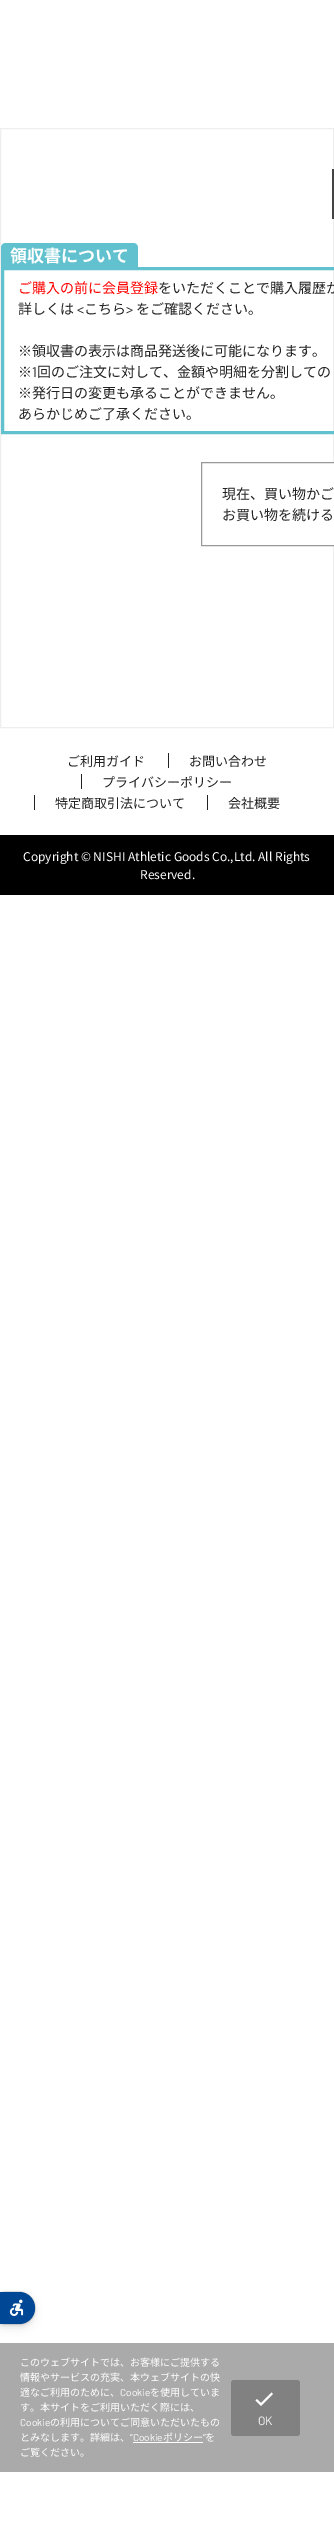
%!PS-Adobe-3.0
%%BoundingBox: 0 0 334 2537
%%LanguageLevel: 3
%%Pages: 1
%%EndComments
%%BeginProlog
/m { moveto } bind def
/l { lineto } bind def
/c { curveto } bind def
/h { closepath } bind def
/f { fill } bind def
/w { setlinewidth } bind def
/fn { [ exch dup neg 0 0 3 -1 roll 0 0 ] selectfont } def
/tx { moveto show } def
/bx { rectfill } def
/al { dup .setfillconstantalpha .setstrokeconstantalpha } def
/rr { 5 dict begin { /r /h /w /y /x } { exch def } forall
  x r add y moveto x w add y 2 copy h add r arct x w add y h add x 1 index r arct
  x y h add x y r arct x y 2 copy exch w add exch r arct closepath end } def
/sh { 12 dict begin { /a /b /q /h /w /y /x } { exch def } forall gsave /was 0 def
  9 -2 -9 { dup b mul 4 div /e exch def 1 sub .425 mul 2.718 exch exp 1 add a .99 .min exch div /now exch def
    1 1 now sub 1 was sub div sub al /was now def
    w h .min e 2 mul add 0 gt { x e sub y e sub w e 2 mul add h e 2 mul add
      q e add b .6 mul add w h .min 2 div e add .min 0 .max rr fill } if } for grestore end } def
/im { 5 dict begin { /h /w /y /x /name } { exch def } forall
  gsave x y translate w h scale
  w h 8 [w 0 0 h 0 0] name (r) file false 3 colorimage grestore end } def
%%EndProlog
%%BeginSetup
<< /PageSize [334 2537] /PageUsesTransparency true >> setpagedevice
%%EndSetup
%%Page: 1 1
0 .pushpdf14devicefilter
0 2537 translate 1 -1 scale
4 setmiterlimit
1 setgray
0 0 334 2537 bx
0.933 setgray
0.5 128.5 333 599 rectstroke
0.267 setgray
332 169 2 50 bx
0.384 0.757 0.808 setrgbcolor
3 w
2.5 268.5 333 164 rectstroke
6 243 m 133 243 l 136 243 138 245 138 248 c 138 268 l 1 268 l 1 248 l 1 245 3 243 6 243 c h f
/NotoSansJP-Bold 17 fn
1 setgray
(領収書について) 10 262 tx
/NotoSansJP-Regular 14 fn
1 0 0 setrgbcolor
(ご購入の前に会員登録) 18 293 tx
0.133 setgray
(をいただくことで購入履歴か) 158 293 tx
(詳しくは) 18 314 tx
/Barlow-Regular 14 fn
(<) 77 314 tx
/NotoSansJP-Regular 14 fn
(こちら) 84 314 tx
/Barlow-Regular 14 fn
(>) 126 314 tx
/NotoSansJP-Regular 14 fn
(をご確認ください。) 136 314 tx
(※領収書の表示は商品発送後に可能になります。) 18 356 tx
(※) 18 377 tx
/Barlow-Regular 14 fn
(1) 32 377 tx
/NotoSansJP-Regular 14 fn
(回のご注文に対して、金額や明細を分割しての) 37 377 tx
(※発行日の変更も承ることができません。) 18 398 tx
(あらかじめご了承ください。) 18 419 tx
1 setgray
333 463 1 82 bx
0.6 setgray
1 w
201.5 462.5 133 83 rectstroke
0.133 setgray
(現在、買い物かご) 222 499 tx
(お買い物を続ける) 222 520 tx
/NotoSansJP-Regular 13 fn
(ご利用ガイド) 67 766 tx
168 753 1 15 bx
(お問い合わせ) 189 766 tx
81 774 1 15 bx
(プライバシーポリシー) 102 787 tx
34 795 1 15 bx
(特定商取引法について) 55 808 tx
207 795 1 15 bx
(会社概要) 228 808 tx
0 setgray
0 835 334 60 bx
/NotoSansJP-Regular 12 fn
1 setgray
(Copyright © NISHI Athletic Goods Co.,Ltd. All Rights) 23 861 tx
(Reserved.) 140 879 tx
0 setgray
-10 2296 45 32 16 4 0.09 sh
-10 2293 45 32 16 1.5 0.09 sh
-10 2292 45 32 16 0.5 0.4 sh
0 0.282 0.588 setrgbcolor
-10 2292 m 19 2292 l 28 2292 35 2299 35 2308 c 35 2317 28 2324 19 2324 c -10 2324 l h f
(image0.raw) 9 2299 15 17 im
0.667 setgray
0 2343 334 129 bx
/NotoSansJP-Regular 10 fn
1 setgray
(このウェブサイトでは、お客様にご提供する) 20 2366 tx
(情報やサービスの充実、本ウェブサイトの快) 20 2381 tx
(適なご利用のために、) 20 2396 tx
/Barlow-Regular 10 fn
(Cookie) 120 2396 tx
/NotoSansJP-Regular 10 fn
(を使用していま) 150 2396 tx
(す。本サイトをご利用いただく際には、) 20 2411 tx
/Barlow-Regular 10 fn
(Cookie) 20 2426 tx
/NotoSansJP-Regular 10 fn
(の利用についてご同意いただいたもの) 50 2426 tx
(とみなします。詳細は、) 20 2441 tx
/Barlow-Regular 10 fn
(”Cookie) 130 2441 tx
/NotoSansJP-Regular 10 fn
(ポリシー) 163 2441 tx
133 2442 70 1 bx
/Barlow-Regular 10 fn
(”) 203 2441 tx
/NotoSansJP-Regular 10 fn
(を) 205 2441 tx
(ご覧ください。) 20 2456 tx
0.506 setgray
231 2380 69 56 3 rr f
1 setgray
261 2403 m 271.5 2392.5 l 273 2394 l 261 2406 l 255.5 2400.5 l 257 2399 l h f
/Barlow-Regular 12 fn
(OK) 258 2425 tx
.poppdf14devicefilter showpage
%%EOF
